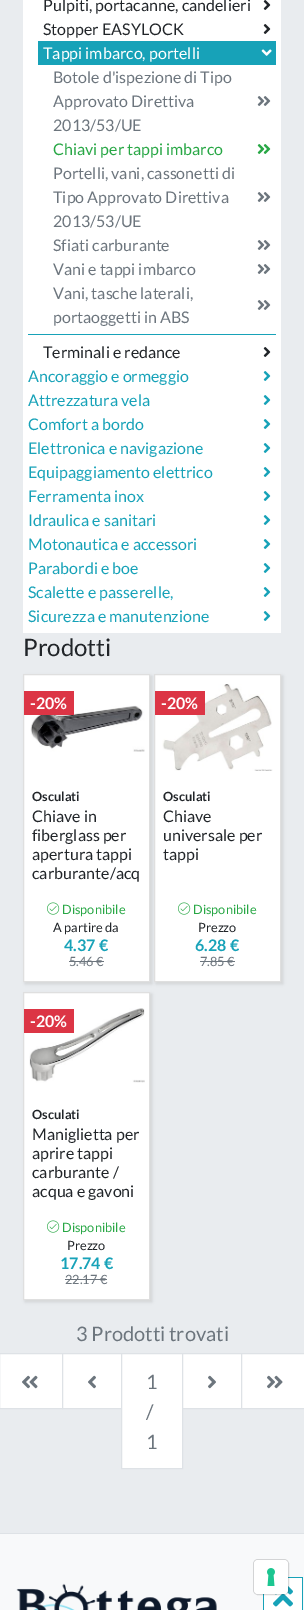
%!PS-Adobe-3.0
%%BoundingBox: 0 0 304 1610
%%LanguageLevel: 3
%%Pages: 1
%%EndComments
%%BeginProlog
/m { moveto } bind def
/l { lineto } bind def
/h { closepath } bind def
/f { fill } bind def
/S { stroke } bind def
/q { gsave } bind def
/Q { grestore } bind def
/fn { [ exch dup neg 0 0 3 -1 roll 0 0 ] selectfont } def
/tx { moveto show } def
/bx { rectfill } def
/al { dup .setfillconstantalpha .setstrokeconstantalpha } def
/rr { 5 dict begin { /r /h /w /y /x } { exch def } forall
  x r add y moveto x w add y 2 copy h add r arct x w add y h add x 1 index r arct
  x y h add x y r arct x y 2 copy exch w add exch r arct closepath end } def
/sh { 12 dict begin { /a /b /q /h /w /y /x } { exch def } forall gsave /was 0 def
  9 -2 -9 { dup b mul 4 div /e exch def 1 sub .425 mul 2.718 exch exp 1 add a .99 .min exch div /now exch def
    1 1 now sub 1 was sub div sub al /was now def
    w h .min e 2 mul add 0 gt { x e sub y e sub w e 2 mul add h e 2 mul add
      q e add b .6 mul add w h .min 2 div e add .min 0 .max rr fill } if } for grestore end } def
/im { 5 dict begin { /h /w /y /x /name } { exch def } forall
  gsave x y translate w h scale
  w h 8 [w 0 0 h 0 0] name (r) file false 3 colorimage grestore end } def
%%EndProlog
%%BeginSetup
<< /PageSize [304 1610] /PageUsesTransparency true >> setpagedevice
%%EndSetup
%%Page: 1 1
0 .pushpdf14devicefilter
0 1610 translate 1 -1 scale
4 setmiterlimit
0.914 0.925 0.937 setrgbcolor
0 0 304 1610 bx
1 setgray
23 0 258 633 bx
/Lato-Regular 16 fn
0.129 0.145 0.161 setrgbcolor
(Pulpiti, portacanne, candelieri) 43 11 tx
(image0.raw) 263 0 8 10 im
(Stopper EASYLOCK) 43 35 tx
(image0.raw) 263 24 8 10 im
0.09 0.635 0.722 setrgbcolor
38 41 238 24 bx
1 setgray
(Tappi imbarco, portelli) 43 59 tx
(image1.raw) 261 49 11 7 im
0.09 0.635 0.722 setrgbcolor
28 334 248 1 bx
0.424 0.459 0.49 setrgbcolor
(Botole d'ispezione di Tipo) 53 83 tx
(Approvato Direttiva) 53 107 tx
(image2.raw) 257 96 14 10 im
(2013/53/UE) 53 131 tx
0.157 0.655 0.271 setrgbcolor
(Chiavi per tappi imbarco) 53 155 tx
(image3.raw) 257 144 14 10 im
0.424 0.459 0.49 setrgbcolor
(Portelli, vani, cassonetti di) 53 179 tx
(Tipo Approvato Direttiva) 53 203 tx
(image2.raw) 257 192 14 10 im
(2013/53/UE) 53 227 tx
(Sfiati carburante) 53 251 tx
(image2.raw) 257 240 14 10 im
(Vani e tappi imbarco) 53 275 tx
(image2.raw) 257 264 14 10 im
(Vani, tasche laterali,) 53 299 tx
(image2.raw) 257 300 14 10 im
(portaoggetti in ABS) 53 323 tx
0.129 0.145 0.161 setrgbcolor
(Terminali e redance) 43 358 tx
(image0.raw) 263 347 8 10 im
0.09 0.635 0.722 setrgbcolor
(Ancoraggio e ormeggio) 28 382 tx
(image4.raw) 263 371 8 10 im
(Attrezzatura vela) 28 406 tx
(image4.raw) 263 395 8 10 im
(Comfort a bordo) 28 430 tx
(image4.raw) 263 419 8 10 im
(Elettronica e navigazione) 28 454 tx
(image4.raw) 263 443 8 10 im
(Equipaggiamento elettrico) 28 478 tx
(image4.raw) 263 467 8 10 im
(Ferramenta inox) 28 502 tx
(image4.raw) 263 491 8 10 im
(Idraulica e sanitari) 28 526 tx
(image4.raw) 263 515 8 10 im
(Motonautica e accessori) 28 550 tx
(image4.raw) 263 539 8 10 im
(Parabordi e boe) 28 574 tx
(image4.raw) 263 563 8 10 im
(Scalette e passerelle,) 28 598 tx
(image4.raw) 263 587 8 10 im
(Sicurezza e manutenzione) 28 622 tx
(image4.raw) 263 611 8 10 im
/Lato-Regular 24 fn
0.129 0.145 0.161 setrgbcolor
(Prodotti) 23 656 tx
0 setgray
25 676 127 308 0 1.5 0.1 sh
1 setgray
23.5 674.5 m 149.5 674.5 l 149.5 981.5 l 23.5 981.5 l h q f Q
0.875 setgray
S
(image5.raw) 30 705 115 47 im
0.863 0.208 0.271 setrgbcolor
24 691 50 24 bx
/Lato-Bold 16 fn
1 setgray
(-20%) 30 709 tx
/Lato-Bold 12.75 fn
0.129 0.145 0.161 setrgbcolor
(Osculati) 32 801 tx
/Lato-Regular 16 fn
(Chiave in) 32 822 tx
(fiberglass per) 32 841 tx
(apertura tappi) 32 860 tx
(carburante/acq) 32 879 tx
(image6.raw) 47 902 13 13 im
/Lato-Regular 12.75 fn
0.157 0.655 0.271 setrgbcolor
(Disponibile) 62 914 tx
0.129 0.145 0.161 setrgbcolor
(A partire da) 53 932 tx
/Lato-Bold 16 fn
0.09 0.635 0.722 setrgbcolor
(4.37 €) 64 951 tx
/Lato-Regular 12.75 fn
0.424 0.459 0.49 setrgbcolor
(5.46 €) 69 966 tx
69 961 35 1 bx
0 setgray
156 676 127 308 0 1.5 0.1 sh
1 setgray
154.5 674.5 m 280.5 674.5 l 280.5 981.5 l 154.5 981.5 l h q f Q
0.875 setgray
S
(image7.raw) 162 684 111 87 im
0.863 0.208 0.271 setrgbcolor
155 691 50 24 bx
/Lato-Bold 16 fn
1 setgray
(-20%) 161 709 tx
/Lato-Bold 12.75 fn
0.129 0.145 0.161 setrgbcolor
(Osculati) 163 801 tx
/Lato-Regular 16 fn
(Chiave) 163 822 tx
(universale per) 163 841 tx
(tappi) 163 860 tx
(image6.raw) 178 902 13 13 im
/Lato-Regular 12.75 fn
0.157 0.655 0.271 setrgbcolor
(Disponibile) 193 914 tx
0.129 0.145 0.161 setrgbcolor
(Prezzo) 198 932 tx
/Lato-Bold 16 fn
0.09 0.635 0.722 setrgbcolor
(6.28 €) 195 951 tx
/Lato-Regular 12.75 fn
0.424 0.459 0.49 setrgbcolor
(7.85 €) 200 966 tx
200 961 35 1 bx
0 setgray
25 994 127 308 0 1.5 0.1 sh
1 setgray
23.5 992.5 m 149.5 992.5 l 149.5 1299.5 l 23.5 1299.5 l h q f Q
0.875 setgray
S
(image8.raw) 29 1008 116 75 im
0.863 0.208 0.271 setrgbcolor
24 1009 50 24 bx
/Lato-Bold 16 fn
1 setgray
(-20%) 30 1027 tx
/Lato-Bold 12.75 fn
0.129 0.145 0.161 setrgbcolor
(Osculati) 32 1119 tx
/Lato-Regular 16 fn
(Maniglietta per) 32 1140 tx
(aprire tappi) 32 1159 tx
(carburante /) 32 1178 tx
(acqua e gavoni) 32 1197 tx
(image6.raw) 47 1220 13 13 im
/Lato-Regular 12.75 fn
0.157 0.655 0.271 setrgbcolor
(Disponibile) 62 1232 tx
0.129 0.145 0.161 setrgbcolor
(Prezzo) 67 1250 tx
/Lato-Bold 16 fn
0.09 0.635 0.722 setrgbcolor
(17.74 €) 60 1269 tx
/Lato-Regular 12.75 fn
0.424 0.459 0.49 setrgbcolor
(22.17 €) 65 1284 tx
65 1279 42 1 bx
/Lato-Regular 20 fn
(3 Prodotti trovati) 76 1341 tx
1 setgray
-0.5 1353.5 m 62.5 1353.5 l 62.5 1408.5 l -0.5 1408.5 l h q f Q
0.871 0.886 0.902 setrgbcolor
S
(image9.raw) 22 1375 16 14 im
1 setgray
62.5 1353.5 m 121.5 1353.5 l 121.5 1408.5 l 62.5 1408.5 l h q f Q
0.871 0.886 0.902 setrgbcolor
S
(image10.raw) 88 1375 8 14 im
1 setgray
121.5 1353.5 m 182.5 1353.5 l 182.5 1468.5 l 121.5 1468.5 l h q f Q
0.871 0.886 0.902 setrgbcolor
S
0.424 0.459 0.49 setrgbcolor
(1) 146 1389 tx
(/) 146 1419 tx
(1) 146 1449 tx
1 setgray
182.5 1353.5 m 241.5 1353.5 l 241.5 1408.5 l 182.5 1408.5 l h q f Q
0.871 0.886 0.902 setrgbcolor
S
(image11.raw) 208 1375 8 14 im
1 setgray
241.5 1353.5 m 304.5 1353.5 l 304.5 1408.5 l 241.5 1408.5 l h q f Q
0.871 0.886 0.902 setrgbcolor
S
(image12.raw) 267 1375 16 14 im
0.973 0.976 0.98 setrgbcolor
0 1534 304 76 bx
0.871 0.886 0.902 setrgbcolor
0 1533 304 1 bx
(image13.raw) 16 1583 201 27 im
1 setgray
264 1578 38 32 bx
0.09 0.635 0.722 setrgbcolor
288 1577 15 1 bx
263 1594 1 16 bx
(image15.raw) 273 1586 20 21 im
0.15 al
0 setgray
253.5 1559.5 35 35 4.5 rr S
1 al
1 setgray
254 1560 34 34 4 rr f
(image14.raw) 267 1568 8 18 im
0.09 0.635 0.722 setrgbcolor
302 1577 1 33 bx
.poppdf14devicefilter showpage
%%EOF
